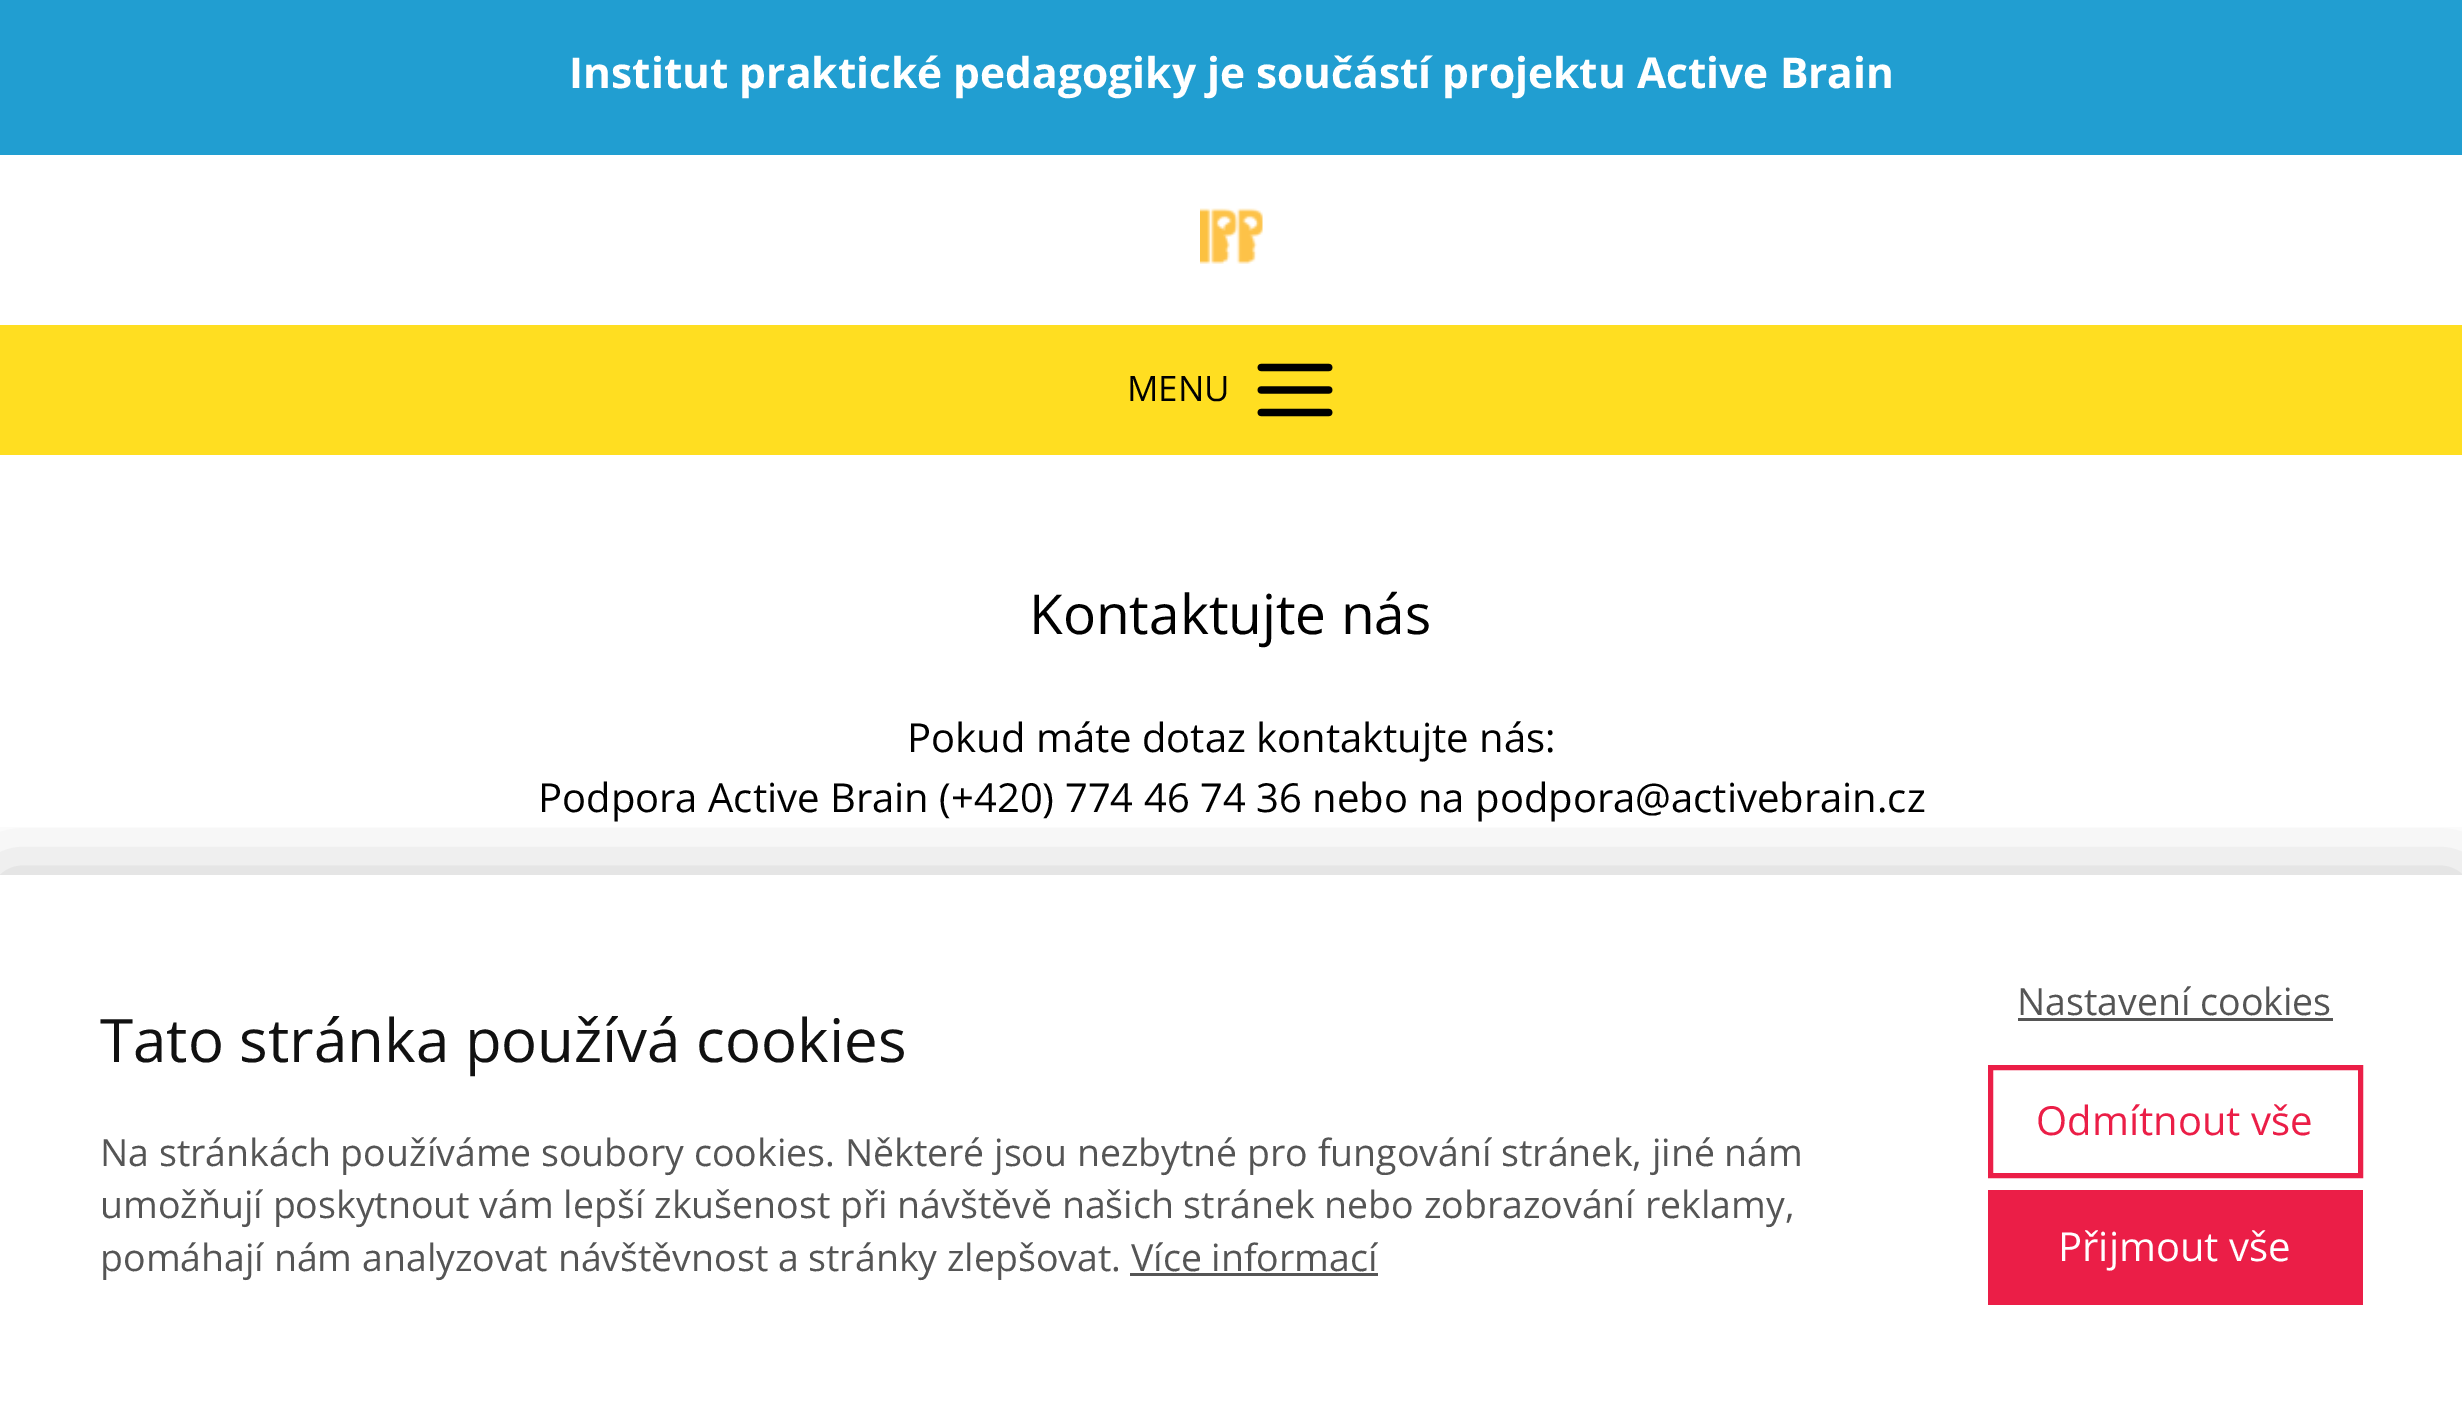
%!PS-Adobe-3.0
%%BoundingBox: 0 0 2462 1405
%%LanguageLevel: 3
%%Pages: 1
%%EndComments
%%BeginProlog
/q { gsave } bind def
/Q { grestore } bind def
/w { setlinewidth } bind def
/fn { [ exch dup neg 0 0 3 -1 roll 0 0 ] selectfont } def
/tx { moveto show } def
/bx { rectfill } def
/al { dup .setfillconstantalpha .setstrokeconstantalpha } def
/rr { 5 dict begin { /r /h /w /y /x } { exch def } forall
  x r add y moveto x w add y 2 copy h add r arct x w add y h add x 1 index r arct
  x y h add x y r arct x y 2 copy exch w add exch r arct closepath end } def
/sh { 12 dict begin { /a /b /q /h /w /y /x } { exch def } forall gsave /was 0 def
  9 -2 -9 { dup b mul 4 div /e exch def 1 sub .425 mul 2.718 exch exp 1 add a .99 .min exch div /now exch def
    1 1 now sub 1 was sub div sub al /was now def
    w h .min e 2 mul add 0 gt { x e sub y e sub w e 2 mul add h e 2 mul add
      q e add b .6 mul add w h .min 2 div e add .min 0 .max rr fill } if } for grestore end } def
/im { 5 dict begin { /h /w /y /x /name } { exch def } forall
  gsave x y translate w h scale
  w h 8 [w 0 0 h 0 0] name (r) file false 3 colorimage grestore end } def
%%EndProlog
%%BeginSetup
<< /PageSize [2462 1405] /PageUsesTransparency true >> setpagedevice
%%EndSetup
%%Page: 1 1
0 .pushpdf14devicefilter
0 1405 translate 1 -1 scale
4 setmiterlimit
1 setgray
0 0 2462 1405 bx
0.129 0.62 0.82 setrgbcolor
0 0 2462 155 bx
/OpenSans-Bold 42.5 fn
1 setgray
(Institut praktické pedagogiky je součástí projektu Active Brain) 569 88 tx
(image0.raw) 1200 208 63 56 im
1 0.871 0.129 setrgbcolor
0 325 2462 130 bx
/OpenSans-Regular 35 fn
0 setgray
(MENU) 1127 401 tx
(image1.raw) 1257 363 76 54 im
/OpenSans-Regular 55 fn
(Kontaktujte nás) 1029 634 tx
/OpenSans-Regular 40 fn
(Pokud máte dotaz kontaktujte nás:) 907 752 tx
(Podpora Active Brain \(+420\) 774 46 74 36 nebo na podpora@activebrain.cz) 538 812 tx
q
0 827 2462 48 rectclip
0 875 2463 530 0 37.5 0.2 sh
Q
/OpenSans-Regular 60 fn
0.067 setgray
(Tato stránka používá cookies) 100 1062 tx
/OpenSans-Regular 37.5 fn
0.333 setgray
(Na stránkách používáme soubory cookies. Některé jsou nezbytné pro fungování stránek, jiné nám) 100 1166 tx
(umožňují poskytnout vám lepší zkušenost při návštěvě našich stránek nebo zobrazování reklamy,) 100 1218 tx
(pomáhají nám analyzovat návštěvnost a stránky zlepšovat. Více informací) 100 1271 tx
1130 1273 248 3 bx
(Nastavení cookies) 2017 1015 tx
2018 1018 315 3 bx
0.922 0.118 0.278 setrgbcolor
5 w
1990.5 1067.5 370 108 rectstroke
/OpenSans-Regular 40 fn
(Odmítnout vše) 2036 1135 tx
1988 1190 375 115 bx
1 setgray
(Přijmout vše) 2058 1261 tx
.poppdf14devicefilter showpage
%%EOF
